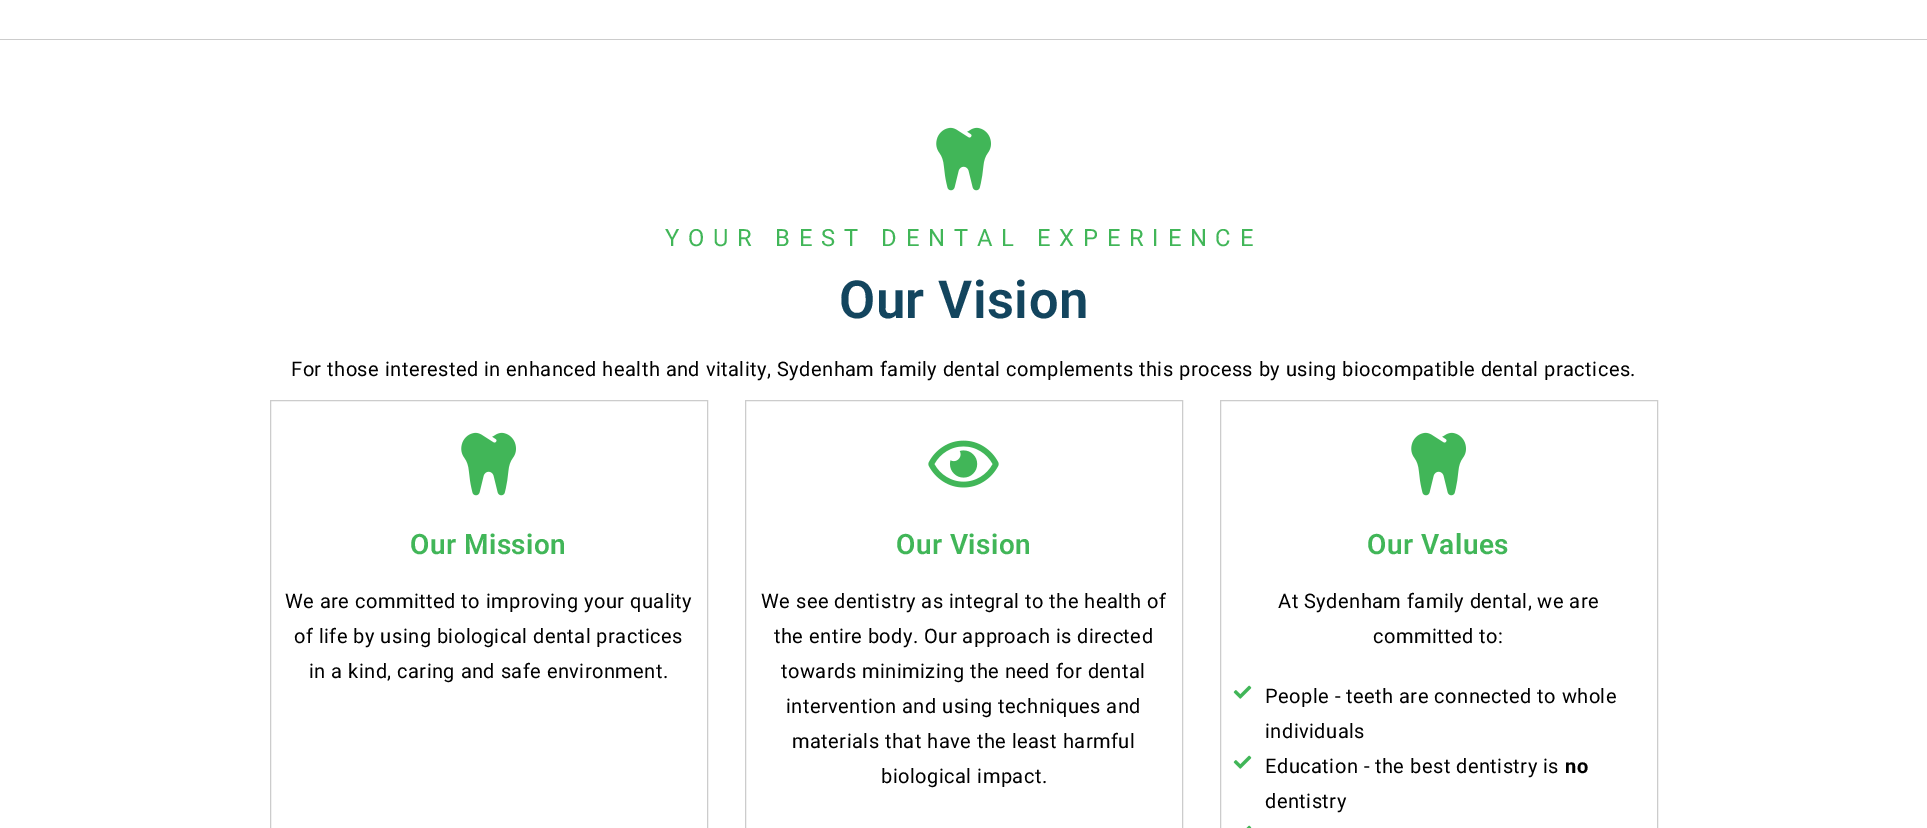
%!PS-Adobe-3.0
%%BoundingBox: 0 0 1927 828
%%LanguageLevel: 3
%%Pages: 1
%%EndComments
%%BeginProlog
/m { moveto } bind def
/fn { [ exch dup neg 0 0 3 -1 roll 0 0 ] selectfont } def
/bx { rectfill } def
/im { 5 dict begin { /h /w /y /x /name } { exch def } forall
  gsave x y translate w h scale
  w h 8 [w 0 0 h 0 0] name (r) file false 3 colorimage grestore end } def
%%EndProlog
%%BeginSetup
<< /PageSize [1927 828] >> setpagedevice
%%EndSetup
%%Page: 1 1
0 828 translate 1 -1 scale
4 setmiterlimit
1 setgray
0 0 1927 828 bx
0.8 setgray
0 39 1927 1 bx
(image0.raw) 936 127 55 64 im
/Roboto-Regular 23.75 fn
0.255 0.714 0.345 setrgbcolor
665 246 m 8.75 0 (YOUR BEST DENTAL EXPERIENCE) ashow
/Roboto-SemiBold 52.5 fn
0.075 0.271 0.369 setrgbcolor
839 318 m 0.47 0 (Our Vision) ashow
/Roboto-Regular 20 fn
0 setgray
291 376 m 0.47 0 (For those interested in enhanced health and vitality, Sydenham family dental complements this process by using biocompatible dental practices.) ashow
0.8 setgray
270.5 400.5 437 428 rectstroke
(image0.raw) 461 432 55 64 im
/Roboto-SemiBold 28 fn
0.255 0.714 0.345 setrgbcolor
410 554 m 0.47 0 (Our Mission) ashow
/Roboto-Regular 20 fn
0 setgray
285 608 m 0.47 0 (We are committed to improving your quality) ashow
294 643 m 0.47 0 (of life by using biological dental practices) ashow
309 678 m 0.47 0 (in a kind, caring and safe environment.) ashow
0.8 setgray
745.5 400.5 437 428 rectstroke
(image1.raw) 928 440 71 48 im
/Roboto-SemiBold 28 fn
0.255 0.714 0.345 setrgbcolor
896 554 m 0.47 0 (Our Vision) ashow
/Roboto-Regular 20 fn
0 setgray
761 608 m 0.47 0 (We see dentistry as integral to the health of) ashow
774 643 m 0.47 0 (the entire body. Our approach is directed) ashow
781 678 m 0.47 0 (towards minimizing the need for dental) ashow
786 713 m 0.47 0 (intervention and using techniques and) ashow
792 748 m 0.47 0 (materials that have the least harmful) ashow
881 783 m 0.47 0 (biological impact.) ashow
0.8 setgray
1220.5 400.5 437 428 rectstroke
(image0.raw) 1411 432 55 64 im
/Roboto-SemiBold 28 fn
0.255 0.714 0.345 setrgbcolor
1367 554 m 0.47 0 (Our Values) ashow
/Roboto-Regular 20 fn
0 setgray
1278 608 m 0.47 0 (At Sydenham family dental, we are) ashow
1373 643 m 0.47 0 (committed to:) ashow
(image2.raw) 1233 685 19 14 im
1265 703 m 0.47 0 (People - teeth are connected to whole) ashow
1265 738 m 0.47 0 (individuals) ashow
(image2.raw) 1233 755 19 14 im
1265 773 m 0.47 0 (Education - the best dentistry is) ashow
/Roboto-Bold 20 fn
1565 773 m 0.47 0 (no) ashow
/Roboto-Regular 20 fn
1265 808 m 0.47 0 (dentistry) ashow
(image3.raw) 1246 825 6 3 im
showpage
%%EOF
